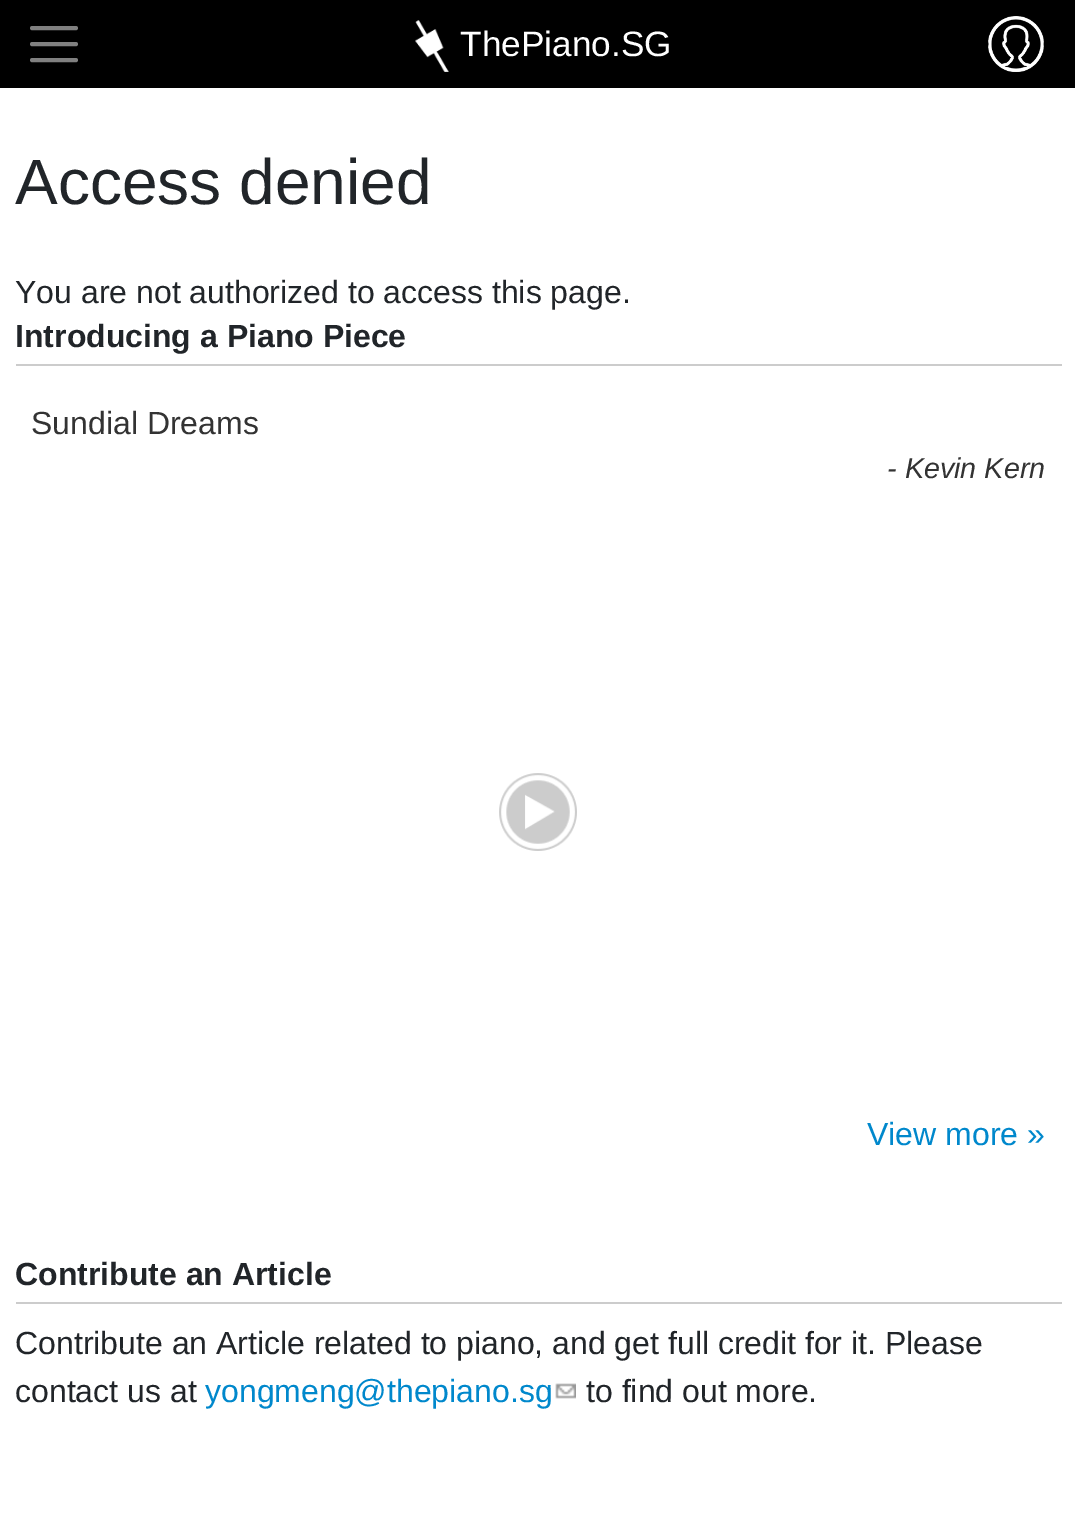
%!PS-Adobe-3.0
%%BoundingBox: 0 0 1075 1530
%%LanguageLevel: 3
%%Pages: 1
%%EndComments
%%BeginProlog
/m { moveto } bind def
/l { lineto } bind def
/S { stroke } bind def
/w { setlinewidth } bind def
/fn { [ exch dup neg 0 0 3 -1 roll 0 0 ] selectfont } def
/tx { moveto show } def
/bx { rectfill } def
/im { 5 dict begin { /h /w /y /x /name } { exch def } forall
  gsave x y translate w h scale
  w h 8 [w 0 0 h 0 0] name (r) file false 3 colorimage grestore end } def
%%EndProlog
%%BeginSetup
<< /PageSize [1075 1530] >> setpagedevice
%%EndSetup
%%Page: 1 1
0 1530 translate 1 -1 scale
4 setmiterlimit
1 setgray
0 0 1075 1530 bx
0 setgray
0 0 1075 88 bx
0.502 setgray
4 w
1 setlinecap
32 28 m 76 28 l 32 44 m 76 44 l 32 60 m 76 60 l S
(image0.raw) 415 20 34 52 im
/LiberationSans-Regular 35.25 fn
1 setgray
(ThePiano.SG) 460 56 tx
(image1.raw) 988 16 56 56 im
/LiberationSans-Regular 64 fn
0.129 0.145 0.161 setrgbcolor
(Access denied) 15 204 tx
/LiberationSans-Regular 32 fn
(You are not authorized to access this page.) 15 303 tx
0.8 setgray
16 364 1046 2 bx
/LiberationSans-Bold 32 fn
0.129 0.145 0.161 setrgbcolor
(Introducing a Piano Piece) 15 347 tx
/LiberationSans-Regular 32 fn
0.2 setgray
(Sundial Dreams) 31 434 tx
/LiberationSans-Italic 28.75 fn
(- Kevin Kern) 887 478 tx
(image2.raw) 499 773 78 78 im
/LiberationSans-Regular 32 fn
0 0.533 0.8 setrgbcolor
(View more ») 867 1145 tx
0.8 setgray
16 1302 1046 2 bx
/LiberationSans-Bold 32 fn
0.129 0.145 0.161 setrgbcolor
(Contribute an Article) 15 1285 tx
/LiberationSans-Regular 32 fn
(Contribute an Article related to piano, and get full credit for it. Please) 15 1354 tx
(contact us at) 15 1402 tx
0 0.533 0.8 setrgbcolor
(yongmeng@thepiano.sg) 205 1402 tx
(image3.raw) 555 1383 21 16 im
0.129 0.145 0.161 setrgbcolor
(to find out more.) 586 1402 tx
showpage
%%EOF
